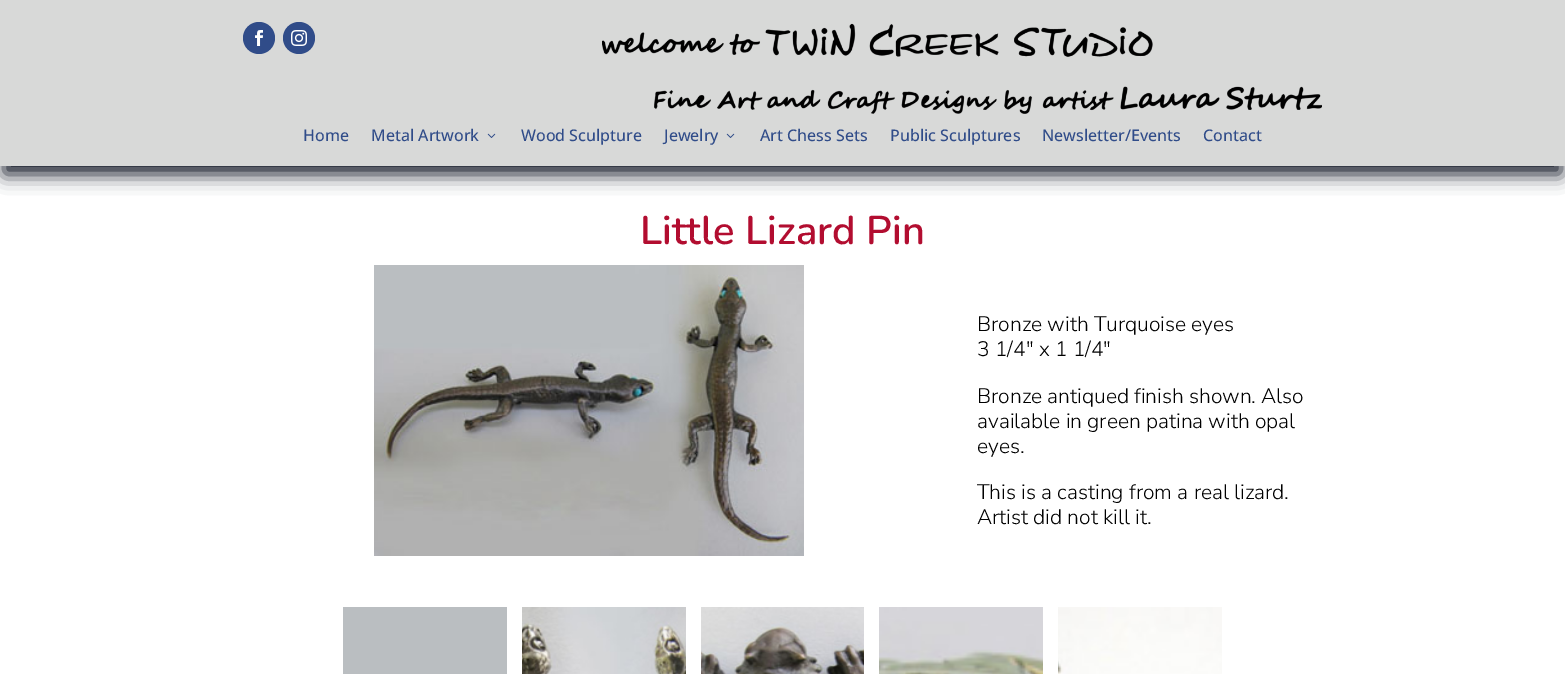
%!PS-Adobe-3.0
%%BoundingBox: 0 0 1565 674
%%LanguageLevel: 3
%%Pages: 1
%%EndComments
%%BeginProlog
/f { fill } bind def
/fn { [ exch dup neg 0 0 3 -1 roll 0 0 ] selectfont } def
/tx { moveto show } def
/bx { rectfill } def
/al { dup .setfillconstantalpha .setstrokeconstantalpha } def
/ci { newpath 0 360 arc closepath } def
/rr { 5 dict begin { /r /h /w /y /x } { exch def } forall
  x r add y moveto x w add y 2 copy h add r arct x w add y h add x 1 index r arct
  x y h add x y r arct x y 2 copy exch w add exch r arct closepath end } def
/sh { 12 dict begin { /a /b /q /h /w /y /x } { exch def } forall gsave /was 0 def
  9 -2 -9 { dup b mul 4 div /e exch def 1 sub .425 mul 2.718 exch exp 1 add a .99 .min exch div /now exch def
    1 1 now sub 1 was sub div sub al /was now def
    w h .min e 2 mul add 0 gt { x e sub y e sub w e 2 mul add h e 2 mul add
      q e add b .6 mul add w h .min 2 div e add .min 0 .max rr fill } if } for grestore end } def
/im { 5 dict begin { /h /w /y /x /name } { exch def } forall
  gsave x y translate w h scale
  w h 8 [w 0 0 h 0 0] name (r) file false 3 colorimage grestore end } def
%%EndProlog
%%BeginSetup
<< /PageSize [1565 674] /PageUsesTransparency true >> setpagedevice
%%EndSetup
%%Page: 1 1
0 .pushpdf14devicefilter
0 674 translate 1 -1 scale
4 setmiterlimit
1 setgray
0 0 1565 674 bx
0.051 0.075 0.129 setrgbcolor
4 16 1557 158 0 9.5 1 sh
0.847 0.851 0.847 setrgbcolor
0 0 1565 166 bx
0.188 0.298 0.537 setrgbcolor
259 38 16 ci f
(image0.raw) 255 30 8 16 im
299 38 16 ci f
(image1.raw) 291 30 16 16 im
(image2.raw) 602 23 720 91 im
/OpenSans-Medium 16 fn
(Home) 303 141 tx
(Metal Artwork) 371 141 tx
(image3.raw) 487 133 9 5 im
(Wood Sculpture) 521 141 tx
(Jewelry) 664 141 tx
(image3.raw) 726 133 9 5 im
(Art Chess Sets) 760 141 tx
(Public Sculptures) 890 141 tx
(Newsletter/Events) 1042 141 tx
(Contact) 1203 141 tx
/Nunito-ExtraLight 40 fn
0.698 0.051 0.188 setrgbcolor
(Little Lizard Pin) 640 244 tx
(image4.raw) 374 265 430 291 im
/NunitoSans-ExtraLight 21 fn
0 setgray
(Bronze with Turquoise eyes) 977 331 tx
(3 1/4″ x 1 1/4″) 977 356 tx
(Bronze antiqued finish shown. Also) 977 403 tx
(available in green patina with opal) 977 428 tx
(eyes.) 977 453 tx
(This is a casting from a real lizard.) 977 499 tx
(Artist did not kill it.) 977 524 tx
0.729 0.745 0.757 setrgbcolor
343 607 164 67 bx
(image5.raw) 522 607 164 67 im
(image6.raw) 701 607 163 67 im
(image7.raw) 879 607 164 67 im
(image8.raw) 1058 607 164 67 im
.poppdf14devicefilter showpage
%%EOF
